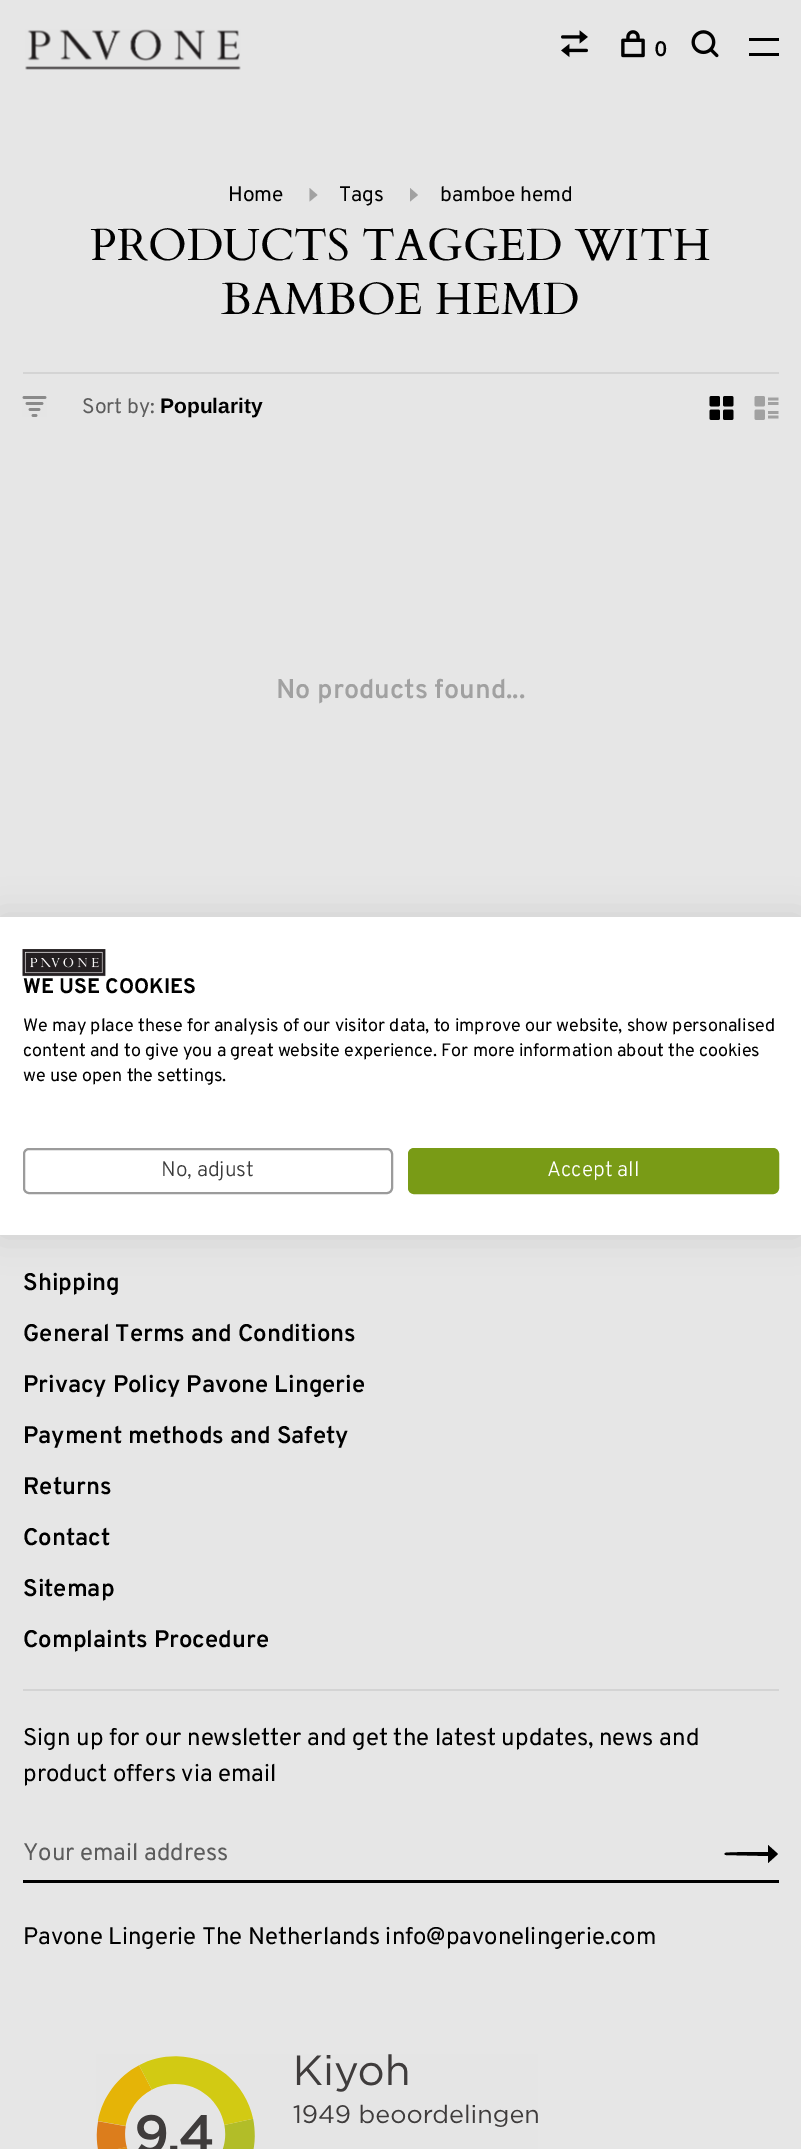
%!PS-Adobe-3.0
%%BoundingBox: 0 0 801 2149
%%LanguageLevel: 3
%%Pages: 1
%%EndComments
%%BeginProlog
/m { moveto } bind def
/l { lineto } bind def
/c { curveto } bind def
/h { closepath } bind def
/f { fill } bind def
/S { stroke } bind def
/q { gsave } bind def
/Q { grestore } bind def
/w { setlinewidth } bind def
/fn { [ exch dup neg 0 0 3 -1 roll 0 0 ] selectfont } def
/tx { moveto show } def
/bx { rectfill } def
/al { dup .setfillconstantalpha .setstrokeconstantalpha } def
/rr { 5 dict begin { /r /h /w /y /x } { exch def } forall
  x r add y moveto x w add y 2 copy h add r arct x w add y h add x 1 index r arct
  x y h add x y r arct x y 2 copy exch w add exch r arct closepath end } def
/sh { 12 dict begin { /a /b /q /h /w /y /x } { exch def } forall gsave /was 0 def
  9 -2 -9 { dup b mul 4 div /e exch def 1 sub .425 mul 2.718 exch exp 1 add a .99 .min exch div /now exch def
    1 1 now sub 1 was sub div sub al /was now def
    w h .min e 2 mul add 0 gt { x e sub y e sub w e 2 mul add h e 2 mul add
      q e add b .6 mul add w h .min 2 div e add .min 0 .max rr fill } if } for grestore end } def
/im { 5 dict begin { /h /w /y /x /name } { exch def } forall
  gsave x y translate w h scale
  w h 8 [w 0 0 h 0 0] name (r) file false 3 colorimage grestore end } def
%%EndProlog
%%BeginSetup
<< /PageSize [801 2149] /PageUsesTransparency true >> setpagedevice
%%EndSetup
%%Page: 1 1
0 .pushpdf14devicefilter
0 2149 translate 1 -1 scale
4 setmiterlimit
0.902 setgray
0 0 801 2149 bx
(image0.raw) 25 29 216 41 im
(image1.raw) 561 30 27 28 im
(image2.raw) 621 30 24 28 im
/Overpass-SemiBold 21 fn
0 setgray
(0) 654 56 tx
(image3.raw) 691 30 28 28 im
749 38 30 3 bx
749 53 30 3 bx
/Overpass-Regular 21 fn
(Home) 228 201 tx
0.631 setgray
309.5 201.5 m 317.5 195 l 309.5 188 l h f
0 setgray
(Tags) 339 201 tx
0.631 setgray
410 201.5 m 418 195 l 410 188 l h f
0 setgray
(bamboe hemd) 440 201 tx
/Cardo-Regular 45 fn
(PRODUCTS TAGGED WITH) 90 260 tx
(BAMBOE HEMD) 221 314 tx
0.831 setgray
23 372 756 2 bx
(image4.raw) 22 396 25 21 im
/Overpass-Regular 21 fn
0.361 setgray
(Sort by:) 82 413 tx
/LiberationSans-Bold 21 fn
0 setgray
(Popularity) 160 413 tx
(image5.raw) 709 396 25 24 im
(image6.raw) 754 396 25 24 im
/Overpass-SemiBold 27 fn
0.631 setgray
(No products found...) 276 698 tx
0.831 setgray
23 1689 756 2 bx
/Overpass-SemiBold 24 fn
0 setgray
(Shipping) 23 1290 tx
(General Terms and Conditions) 23 1341 tx
(Privacy Policy Pavone Lingerie) 23 1392 tx
(Payment methods and Safety) 23 1443 tx
(Returns) 23 1494 tx
(Contact) 23 1545 tx
(Sitemap) 23 1596 tx
(Complaints Procedure) 23 1647 tx
/Overpass-Regular 24 fn
(Sign up for our newsletter and get the latest updates, news and) 23 1745 tx
(product offers via email) 23 1781 tx
23 1880 756 3 bx
0.361 setgray
(Your email address) 23 1860 tx
0 setgray
768 1852 m 763 1852 726 1852 725 1853 c 724 1854 725 1855 726 1855 c 768 1856 l 768 1863 l 778 1854 l 768 1845 l h f
(Pavone Lingerie The Netherlands info@pavonelingerie.com) 23 1944 tx
(image7.raw) 96 2054 442 95 im
0 917 801 318 0 18 0.1 sh
1 setgray
0 917 801 318 bx
(image8.raw) 22 949 84 28 im
/Overpass-Bold 21 fn
0 setgray
(WE USE COOKIES) 23 993 tx
/Overpass-Regular 18 fn
(We may place these for analysis of our visitor data, to improve our website, show personalised) 23 1031 tx
(content and to give you a great website experience. For more information about the cookies) 23 1056 tx
(we use open the settings.) 23 1081 tx
0.608 setgray
2 w
24 1149 368 44 5 rr S
/Overpass-Light 21 fn
0.231 setgray
(No, adjust) 161 1176 tx
0.475 0.608 0.086 setrgbcolor
409 1149 369 44 5 rr q f Q
S
1 setgray
(Accept all) 547 1176 tx
.poppdf14devicefilter showpage
%%EOF
